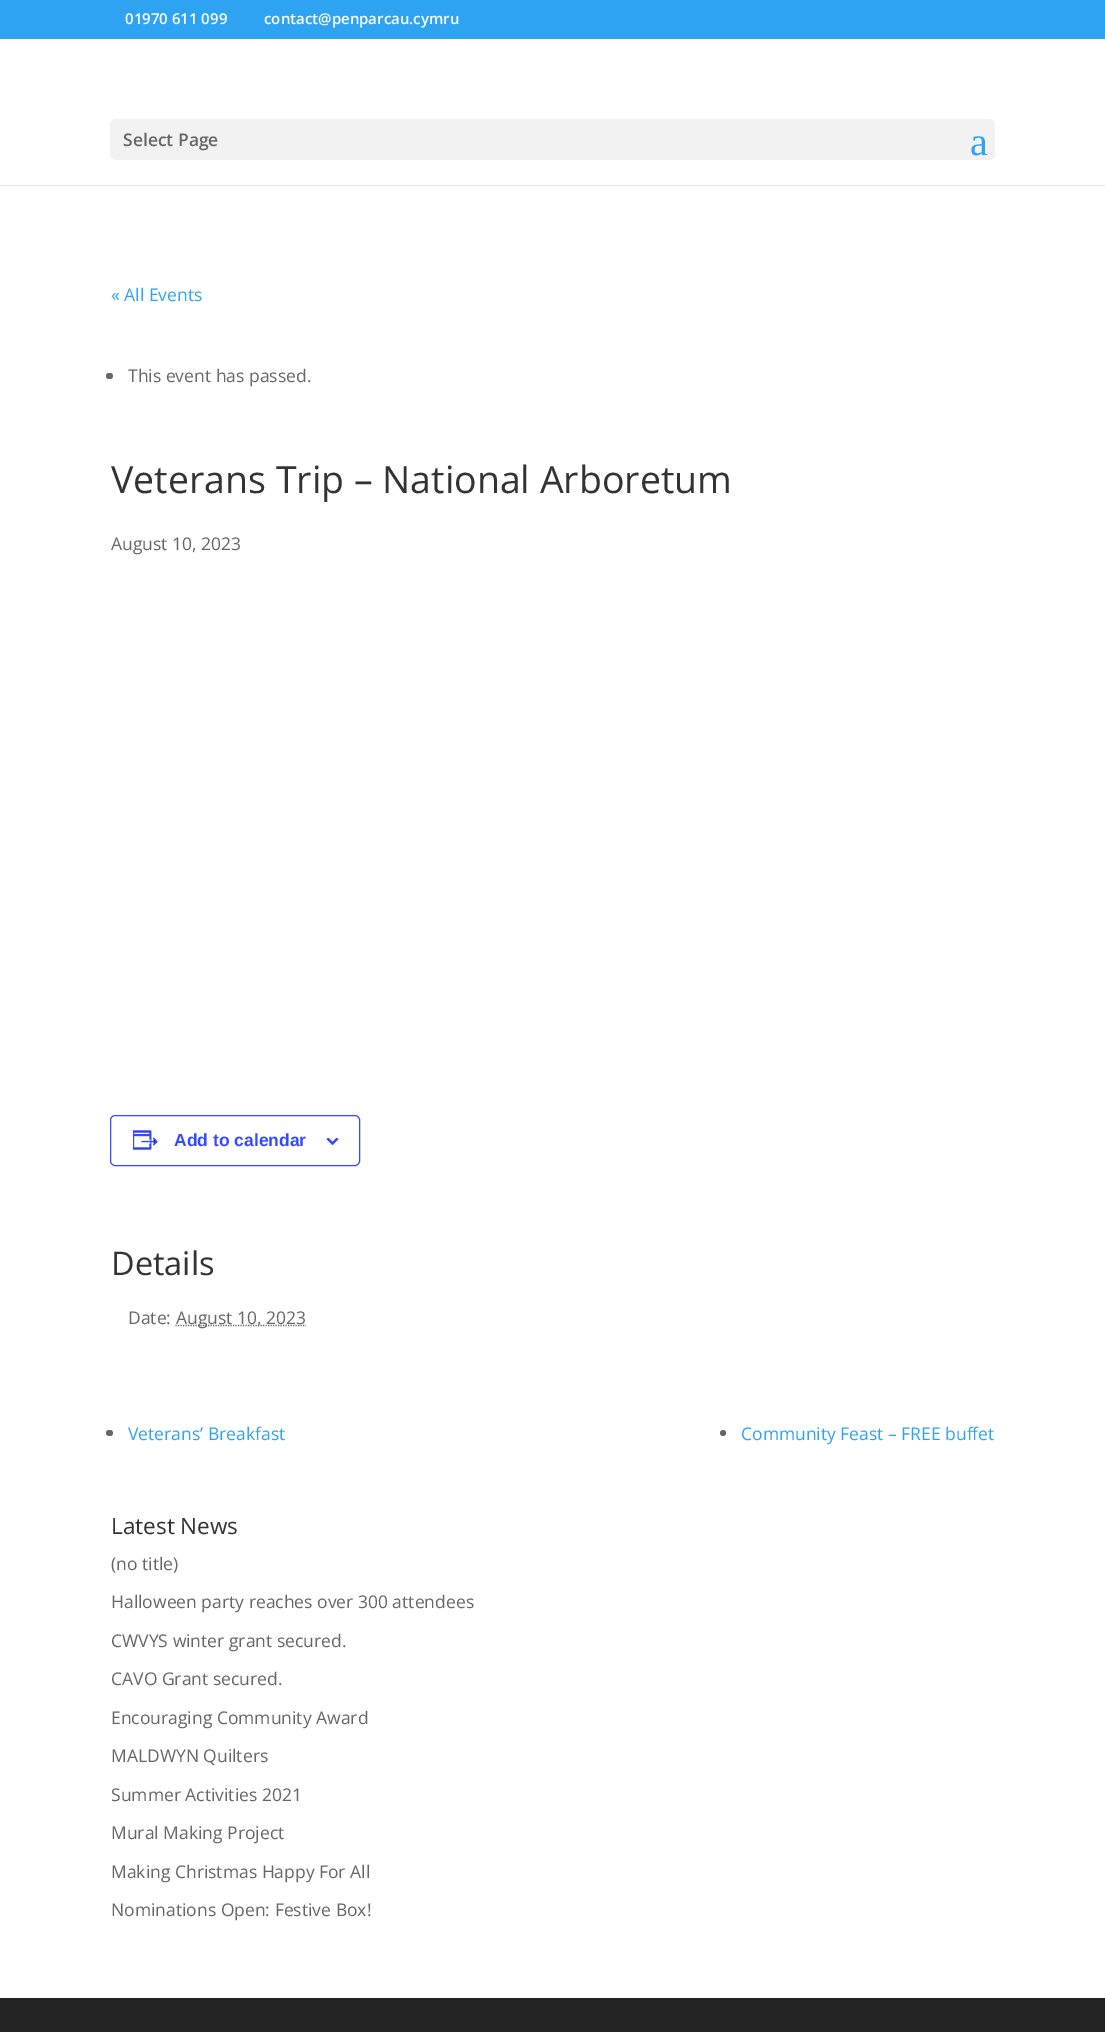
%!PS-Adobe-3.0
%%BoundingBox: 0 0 1105 2032
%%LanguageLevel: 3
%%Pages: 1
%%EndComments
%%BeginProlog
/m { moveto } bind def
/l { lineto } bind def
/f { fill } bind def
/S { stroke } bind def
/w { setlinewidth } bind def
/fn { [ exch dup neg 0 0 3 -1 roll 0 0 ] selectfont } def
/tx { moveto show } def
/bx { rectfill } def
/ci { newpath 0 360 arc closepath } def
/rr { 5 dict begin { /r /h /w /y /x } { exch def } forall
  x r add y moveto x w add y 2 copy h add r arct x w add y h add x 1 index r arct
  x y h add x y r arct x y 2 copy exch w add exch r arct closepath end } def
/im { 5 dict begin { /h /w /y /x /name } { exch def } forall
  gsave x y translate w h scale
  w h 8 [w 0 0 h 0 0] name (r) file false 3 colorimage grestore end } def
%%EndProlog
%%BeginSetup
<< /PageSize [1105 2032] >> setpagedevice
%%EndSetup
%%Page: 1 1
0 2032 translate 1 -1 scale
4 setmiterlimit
1 setgray
0 0 1105 2032 bx
0.18 0.639 0.949 setrgbcolor
0 0 1105 39 bx
/OpenSans-SemiBold 15 fn
1 setgray
(01970 611 099) 125 24 tx
(contact@penparcau.cymru) 264 24 tx
0.902 setgray
0 185 1105 1 bx
0.949 setgray
110 119 885 41 6 rr f
/OpenSans-SemiBold 17.5 fn
0.4 setgray
(Select Page) 123 146 tx
/LiberationSerif-Regular 40 fn
0.18 0.639 0.949 setrgbcolor
(a) 970 155 tx
/OpenSans-Regular 17.5 fn
(« All Events) 111 301 tx
0.4 setgray
106 373 7 6 3 rr f
(This event has passed.) 128 382 tx
/OpenSans-Regular 37.5 fn
0.2 setgray
(Veterans Trip – National Arboretum) 111 493 tx
/OpenSans-Regular 17.5 fn
0.4 setgray
(August 10, 2023) 111 550 tx
0.2 0.29 1 setrgbcolor
110.5 1115.5 249 50 4.5 rr S
(image0.raw) 133 1130 25 20 im
/LiberationSans-Bold 17.5 fn
(Add to calendar) 174 1146 tx
(image1.raw) 326 1138 13 7 im
/OpenSans-Regular 32.5 fn
0.2 setgray
(Details) 111 1275 tx
/OpenSans-Regular 17.5 fn
0.4 setgray
(Date:) 128 1324 tx
1.2 w
[1.25 1.25] 0 setdash
175.5 1325.5 m 306 1325.5 l S
(August 10, 2023) 176 1324 tx
106 1430 7 6 3 rr f
0.18 0.639 0.949 setrgbcolor
(Veterans’ Breakfast) 128 1440 tx
0.4 setgray
723 1433 3 ci f
0.18 0.639 0.949 setrgbcolor
(Community Feast – FREE buffet) 741 1440 tx
/OpenSans-Regular 22.5 fn
0.2 setgray
(Latest News) 111 1534 tx
/OpenSans-Regular 17.5 fn
0.4 setgray
(\(no title\)) 111 1570 tx
(Halloween party reaches over 300 attendees) 111 1608 tx
(CWVYS winter grant secured.) 111 1647 tx
(CAVO Grant secured.) 111 1685 tx
(Encouraging Community Award) 111 1724 tx
(MALDWYN Quilters) 111 1762 tx
(Summer Activities 2021) 111 1801 tx
(Mural Making Project) 111 1839 tx
(Making Christmas Happy For All) 111 1878 tx
(Nominations Open: Festive Box!) 111 1916 tx
0.133 setgray
0 1998 1105 34 bx
showpage
%%EOF
